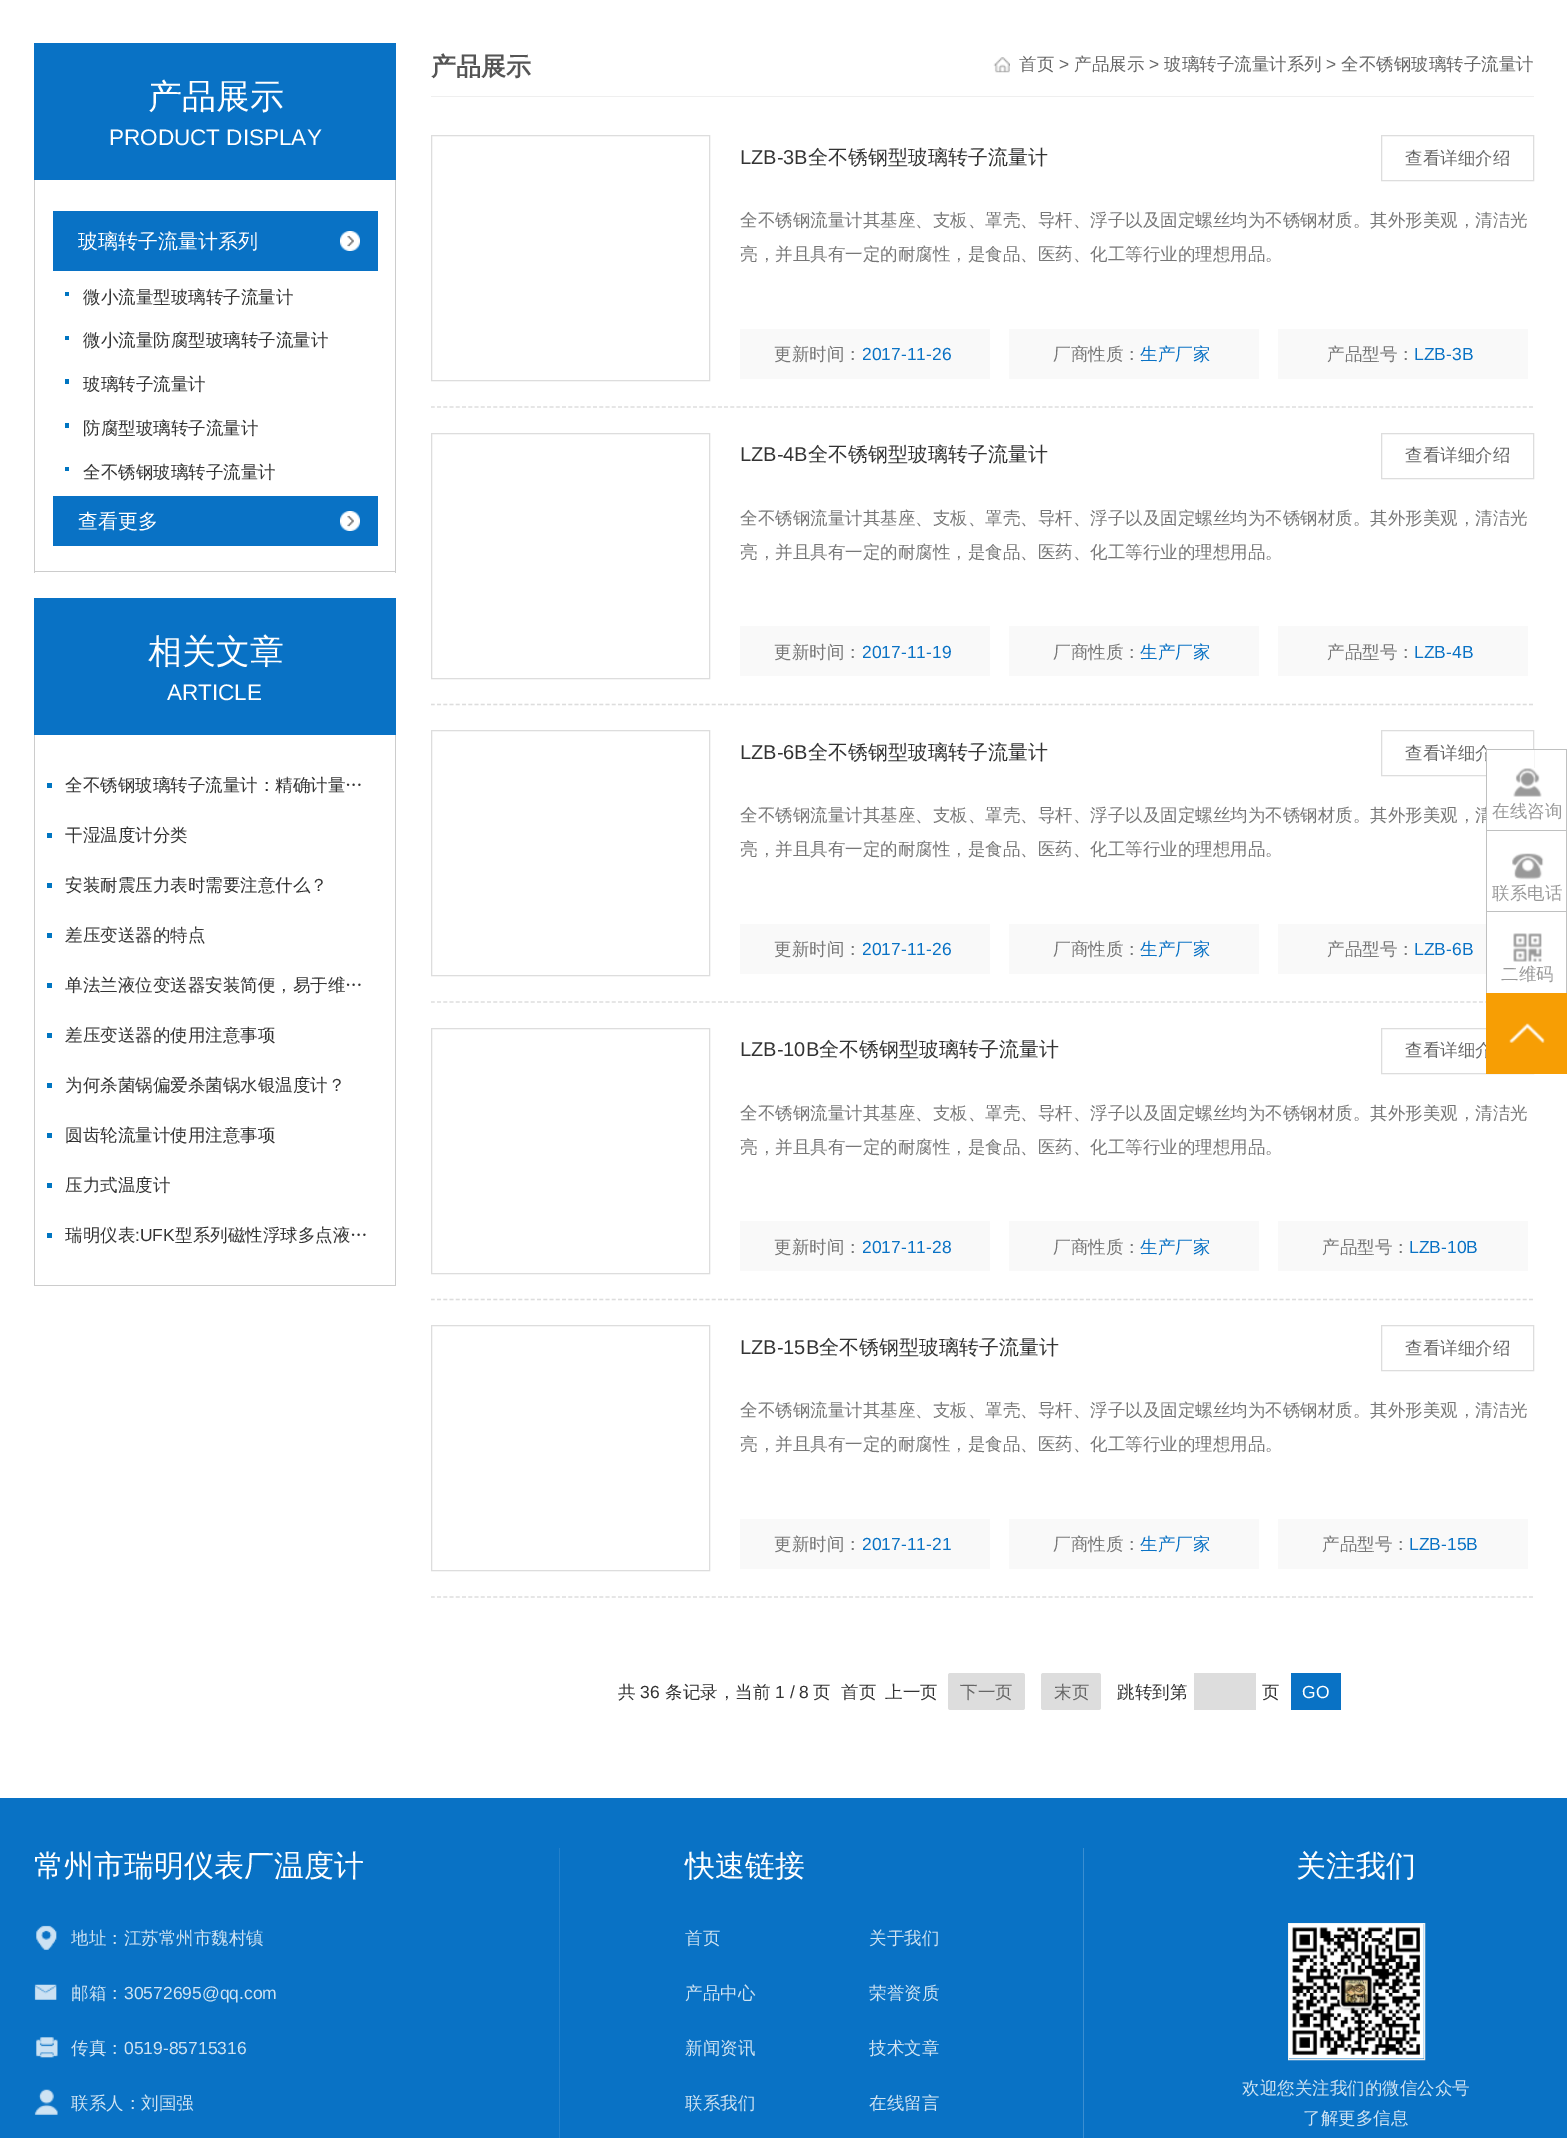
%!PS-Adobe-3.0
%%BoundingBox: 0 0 1567 2138
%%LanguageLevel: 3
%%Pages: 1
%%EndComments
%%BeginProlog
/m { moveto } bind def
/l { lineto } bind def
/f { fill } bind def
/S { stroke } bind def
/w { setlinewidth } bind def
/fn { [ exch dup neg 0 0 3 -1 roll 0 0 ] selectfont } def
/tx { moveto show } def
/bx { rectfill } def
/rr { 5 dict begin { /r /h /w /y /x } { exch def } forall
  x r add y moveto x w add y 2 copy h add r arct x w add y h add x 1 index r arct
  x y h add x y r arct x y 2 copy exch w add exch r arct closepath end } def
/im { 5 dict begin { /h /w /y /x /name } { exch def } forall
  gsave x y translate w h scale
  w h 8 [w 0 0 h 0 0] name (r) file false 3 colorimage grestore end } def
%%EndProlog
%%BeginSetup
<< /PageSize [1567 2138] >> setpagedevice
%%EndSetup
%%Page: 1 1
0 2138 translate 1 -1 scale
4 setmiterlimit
1 setgray
0 0 1567 2138 bx
0.035 0.447 0.773 setrgbcolor
34 43 362 137 bx
/WenQuanYiZenHei-Medium 34 fn
1 setgray
(产品展示) 148 108 tx
/LiberationSans-Regular 22.5 fn
(PRODUCT DISPLAY) 109 145 tx
0.8 setgray
395 180 1 393 bx
34 571 362 1 bx
34 180 1 393 bx
0.035 0.447 0.773 setrgbcolor
53 211 325 60 bx
(image0.raw) 340 231 20 20 im
/WenQuanYiZenHei-Medium 20 fn
1 setgray
(玻璃转子流量计系列) 78 248 tx
0 0.459 0.757 setrgbcolor
65 292 4 4 bx
/WenQuanYiZenHei-Medium 17.5 fn
0.2 setgray
(微小流量型玻璃转子流量计) 83 303 tx
0 0.459 0.757 setrgbcolor
65 336 4 4 bx
0.2 setgray
(微小流量防腐型玻璃转子流量计) 83 346 tx
0 0.459 0.757 setrgbcolor
65 379 4 5 bx
0.2 setgray
(玻璃转子流量计) 83 390 tx
0 0.459 0.757 setrgbcolor
65 423 4 5 bx
0.2 setgray
(防腐型玻璃转子流量计) 83 434 tx
0 0.459 0.757 setrgbcolor
65 467 4 4 bx
0.2 setgray
(全不锈钢玻璃转子流量计) 83 478 tx
0.035 0.447 0.773 setrgbcolor
53 496 325 50 bx
(image0.raw) 340 511 20 20 im
/WenQuanYiZenHei-Medium 20 fn
1 setgray
(查看更多) 78 528 tx
0.035 0.447 0.773 setrgbcolor
34 598 362 137 bx
/WenQuanYiZenHei-Medium 34 fn
1 setgray
(相关文章) 148 663 tx
/LiberationSans-Regular 22.5 fn
(ARTICLE) 167 700 tx
0.8 setgray
395 735 1 551 bx
34 1285 362 1 bx
34 735 1 551 bx
0 0.459 0.757 setrgbcolor
47 783 5 5 bx
/WenQuanYiZenHei-Medium 17.5 fn
0.2 setgray
(全不锈钢玻璃转子流量计：精确计量…) 65 791 tx
0 0.459 0.757 setrgbcolor
47 833 5 5 bx
0.2 setgray
(干湿温度计分类) 65 841 tx
0 0.459 0.757 setrgbcolor
47 883 5 5 bx
0.2 setgray
(安装耐震压力表时需要注意什么？) 65 891 tx
0 0.459 0.757 setrgbcolor
47 933 5 5 bx
0.2 setgray
(差压变送器的特点) 65 941 tx
0 0.459 0.757 setrgbcolor
47 983 5 5 bx
0.2 setgray
(单法兰液位变送器安装简便，易于维…) 65 991 tx
0 0.459 0.757 setrgbcolor
47 1033 5 5 bx
0.2 setgray
(差压变送器的使用注意事项) 65 1041 tx
0 0.459 0.757 setrgbcolor
47 1083 5 5 bx
0.2 setgray
(为何杀菌锅偏爱杀菌锅水银温度计？) 65 1091 tx
0 0.459 0.757 setrgbcolor
47 1133 5 5 bx
0.2 setgray
(圆齿轮流量计使用注意事项) 65 1141 tx
0 0.459 0.757 setrgbcolor
47 1183 5 5 bx
0.2 setgray
(压力式温度计) 65 1191 tx
0 0.459 0.757 setrgbcolor
47 1233 5 5 bx
0.2 setgray
(瑞明仪表) 65 1241 tx
/LiberationSans-Regular 17.5 fn
(:UFK) 135 1241 tx
/WenQuanYiZenHei-Medium 17.5 fn
(型系列磁性浮球多点液…) 175 1241 tx
0.937 setgray
431 96 1103 1 bx
/WenQuanYiZenHei-Bold 25 fn
0.333 setgray
(产品展示) 431 75 tx
(image1.raw) 993 57 17 16 im
/WenQuanYiZenHei-Medium 17.5 fn
0.4 setgray
(首页) 1019 70 tx
/LiberationSans-Regular 17.5 fn
(>) 1059 70 tx
/WenQuanYiZenHei-Medium 17.5 fn
(产品展示) 1074 70 tx
/LiberationSans-Regular 17.5 fn
(>) 1149 70 tx
/WenQuanYiZenHei-Medium 17.5 fn
(玻璃转子流量计系列) 1164 70 tx
/LiberationSans-Regular 17.5 fn
(>) 1326 70 tx
/WenQuanYiZenHei-Medium 17.5 fn
(全不锈钢玻璃转子流量计) 1341 70 tx
0.867 setgray
1.2 w
[3.75 2.49] 0 setdash
431 407 m 1534 407 l S
1 w
[] 0 setdash
431.5 135.5 278 245 rectstroke
/LiberationSans-Regular 20 fn
0.2 setgray
(LZB-3B) 740 164 tx
/WenQuanYiZenHei-Medium 20 fn
(全不锈钢型玻璃转子流量计) 808 164 tx
0.867 setgray
1381.5 135.5 152 45 rectstroke
/WenQuanYiZenHei-Medium 17.5 fn
0.4 setgray
(查看详细介绍) 1405 164 tx
0.467 setgray
(全不锈钢流量计其基座、支板、罩壳、导杆、浮子以及固定螺丝均为不锈钢材质。其外形美观，清洁光) 740 226 tx
(亮，并且具有一定的耐腐性，是食品、医药、化工等行业的理想用品。) 740 260 tx
0.976 setgray
740 329 250 50 bx
0.467 setgray
(更新时间：) 774 360 tx
/LiberationSans-Regular 17.5 fn
0.035 0.447 0.773 setrgbcolor
(2017-11-26) 862 360 tx
0.976 setgray
1009 329 250 50 bx
/WenQuanYiZenHei-Medium 17.5 fn
0.467 setgray
(厂商性质：) 1053 360 tx
0.035 0.447 0.773 setrgbcolor
(生产厂家) 1140 360 tx
0.976 setgray
1278 329 250 50 bx
0.467 setgray
(产品型号：) 1327 360 tx
/LiberationSans-Regular 17.5 fn
0.035 0.447 0.773 setrgbcolor
(LZB-3B) 1414 360 tx
0.867 setgray
1.2 w
[3.75 2.49] 0 setdash
431 704.5 m 1534 704.5 l S
1 w
[] 0 setdash
431.5 433.5 278 245 rectstroke
/LiberationSans-Regular 20 fn
0.2 setgray
(LZB-4B) 740 461 tx
/WenQuanYiZenHei-Medium 20 fn
(全不锈钢型玻璃转子流量计) 808 461 tx
0.867 setgray
1381.5 433.5 152 45 rectstroke
/WenQuanYiZenHei-Medium 17.5 fn
0.4 setgray
(查看详细介绍) 1405 461 tx
0.467 setgray
(全不锈钢流量计其基座、支板、罩壳、导杆、浮子以及固定螺丝均为不锈钢材质。其外形美观，清洁光) 740 524 tx
(亮，并且具有一定的耐腐性，是食品、医药、化工等行业的理想用品。) 740 558 tx
0.976 setgray
740 626 250 50 bx
0.467 setgray
(更新时间：) 774 658 tx
/LiberationSans-Regular 17.5 fn
0.035 0.447 0.773 setrgbcolor
(2017-11-19) 862 658 tx
0.976 setgray
1009 626 250 50 bx
/WenQuanYiZenHei-Medium 17.5 fn
0.467 setgray
(厂商性质：) 1053 658 tx
0.035 0.447 0.773 setrgbcolor
(生产厂家) 1140 658 tx
0.976 setgray
1278 626 250 50 bx
0.467 setgray
(产品型号：) 1327 658 tx
/LiberationSans-Regular 17.5 fn
0.035 0.447 0.773 setrgbcolor
(LZB-4B) 1414 658 tx
0.867 setgray
1.2 w
[3.75 2.49] 0 setdash
431 1002 m 1534 1002 l S
1 w
[] 0 setdash
431.5 730.5 278 245 rectstroke
/LiberationSans-Regular 20 fn
0.2 setgray
(LZB-6B) 740 759 tx
/WenQuanYiZenHei-Medium 20 fn
(全不锈钢型玻璃转子流量计) 808 759 tx
0.867 setgray
1381.5 730.5 152 45 rectstroke
/WenQuanYiZenHei-Medium 17.5 fn
0.4 setgray
(查看详细介) 1405 759 tx
0.467 setgray
(全不锈钢流量计其基座、支板、罩壳、导杆、浮子以及固定螺丝均为不锈钢材质。其外形美观，清) 740 821 tx
(亮，并且具有一定的耐腐性，是食品、医药、化工等行业的理想用品。) 740 855 tx
0.976 setgray
740 924 250 50 bx
0.467 setgray
(更新时间：) 774 955 tx
/LiberationSans-Regular 17.5 fn
0.035 0.447 0.773 setrgbcolor
(2017-11-26) 862 955 tx
0.976 setgray
1009 924 250 50 bx
/WenQuanYiZenHei-Medium 17.5 fn
0.467 setgray
(厂商性质：) 1053 955 tx
0.035 0.447 0.773 setrgbcolor
(生产厂家) 1140 955 tx
0.976 setgray
1278 924 208 50 bx
0.467 setgray
(产品型号：) 1327 955 tx
/LiberationSans-Regular 17.5 fn
0.035 0.447 0.773 setrgbcolor
(LZB-6B) 1414 955 tx
0.867 setgray
1.2 w
[3.75 2.49] 0 setdash
431 1299.5 m 1534 1299.5 l S
1 w
[] 0 setdash
431.5 1028.5 278 245 rectstroke
/LiberationSans-Regular 20 fn
0.2 setgray
(LZB-10B) 740 1056 tx
/WenQuanYiZenHei-Medium 20 fn
(全不锈钢型玻璃转子流量计) 819 1056 tx
0.867 setgray
1381.5 1028.5 152 45 rectstroke
/WenQuanYiZenHei-Medium 17.5 fn
0.4 setgray
(查看详细介) 1405 1056 tx
0.467 setgray
(全不锈钢流量计其基座、支板、罩壳、导杆、浮子以及固定螺丝均为不锈钢材质。其外形美观，清洁光) 740 1119 tx
(亮，并且具有一定的耐腐性，是食品、医药、化工等行业的理想用品。) 740 1153 tx
0.976 setgray
740 1221 250 50 bx
0.467 setgray
(更新时间：) 774 1253 tx
/LiberationSans-Regular 17.5 fn
0.035 0.447 0.773 setrgbcolor
(2017-11-28) 862 1253 tx
0.976 setgray
1009 1221 250 50 bx
/WenQuanYiZenHei-Medium 17.5 fn
0.467 setgray
(厂商性质：) 1053 1253 tx
0.035 0.447 0.773 setrgbcolor
(生产厂家) 1140 1253 tx
0.976 setgray
1278 1221 250 50 bx
0.467 setgray
(产品型号：) 1322 1253 tx
/LiberationSans-Regular 17.5 fn
0.035 0.447 0.773 setrgbcolor
(LZB-10B) 1409 1253 tx
0.867 setgray
1.2 w
[3.75 2.49] 0 setdash
431 1597 m 1534 1597 l S
1 w
[] 0 setdash
431.5 1325.5 278 245 rectstroke
/LiberationSans-Regular 20 fn
0.2 setgray
(LZB-15B) 740 1354 tx
/WenQuanYiZenHei-Medium 20 fn
(全不锈钢型玻璃转子流量计) 819 1354 tx
0.867 setgray
1381.5 1325.5 152 45 rectstroke
/WenQuanYiZenHei-Medium 17.5 fn
0.4 setgray
(查看详细介绍) 1405 1354 tx
0.467 setgray
(全不锈钢流量计其基座、支板、罩壳、导杆、浮子以及固定螺丝均为不锈钢材质。其外形美观，清洁光) 740 1416 tx
(亮，并且具有一定的耐腐性，是食品、医药、化工等行业的理想用品。) 740 1450 tx
0.976 setgray
740 1519 250 50 bx
0.467 setgray
(更新时间：) 774 1550 tx
/LiberationSans-Regular 17.5 fn
0.035 0.447 0.773 setrgbcolor
(2017-11-21) 862 1550 tx
0.976 setgray
1009 1519 250 50 bx
/WenQuanYiZenHei-Medium 17.5 fn
0.467 setgray
(厂商性质：) 1053 1550 tx
0.035 0.447 0.773 setrgbcolor
(生产厂家) 1140 1550 tx
0.976 setgray
1278 1519 250 50 bx
0.467 setgray
(产品型号：) 1322 1550 tx
/LiberationSans-Regular 17.5 fn
0.035 0.447 0.773 setrgbcolor
(LZB-15B) 1409 1550 tx
/WenQuanYiZenHei-Medium 17.5 fn
0.2 setgray
(共) 618 1698 tx
/LiberationSans-Regular 17.5 fn
(36) 640 1698 tx
/WenQuanYiZenHei-Medium 17.5 fn
(条记录，当前) 665 1698 tx
/LiberationSans-Regular 17.5 fn
(1 / 8) 775 1698 tx
/WenQuanYiZenHei-Medium 17.5 fn
(页) 813 1698 tx
(首页) 841 1698 tx
(上一页) 885 1698 tx
0.867 setgray
948 1673 77 37 2.5 rr f
0.4 setgray
(下一页) 960 1698 tx
0.867 setgray
1041 1673 60 37 2.5 rr f
0.4 setgray
(末页) 1054 1698 tx
0.2 setgray
(跳转到第) 1117 1698 tx
0.867 setgray
1194 1673 62 37 bx
0.2 setgray
(页) 1262 1698 tx
0.035 0.447 0.773 setrgbcolor
1291 1673 50 37 bx
/LiberationSans-Regular 17.5 fn
1 setgray
(GO) 1302 1698 tx
1487 750 47 74 bx
(image2.raw) 1513 768 29 29 im
0.749 0.753 0.753 setrgbcolor
1486 749 81 1 bx
1566 749 1 81 bx
1486 749 1 81 bx
/WenQuanYiZenHei-Medium 17.5 fn
0.6 setgray
(在线咨询) 1492 817 tx
(image3.raw) 1512 853 32 27 im
0.749 0.753 0.753 setrgbcolor
1486 830 81 1 bx
1566 830 1 81 bx
1486 830 1 81 bx
0.6 setgray
(联系电话) 1492 899 tx
(image4.raw) 1513 933 29 29 im
0.749 0.753 0.753 setrgbcolor
1486 911 81 1 bx
1566 911 1 82 bx
1486 911 1 82 bx
0.6 setgray
(二维码) 1501 980 tx
0.969 0.62 0.016 setrgbcolor
1486 993 81 81 bx
(image5.raw) 1509 1023 36 20 im
0.035 0.447 0.773 setrgbcolor
0 1798 1567 340 bx
/WenQuanYiZenHei-Medium 30 fn
1 setgray
(常州市瑞明仪表厂温度计) 34 1876 tx
(image6.raw) 36 1925 21 25 im
/WenQuanYiZenHei-Medium 17.5 fn
0.808 0.89 0.953 setrgbcolor
(地址：江苏常州市魏村镇) 71 1944 tx
(image7.raw) 34 1984 23 16 im
(邮箱：) 71 1999 tx
/LiberationSans-Regular 17.5 fn
(30572695@qq.com) 124 1999 tx
(image8.raw) 36 2037 22 21 im
/WenQuanYiZenHei-Medium 17.5 fn
(传真：) 71 2054 tx
/LiberationSans-Regular 17.5 fn
(0519-85715316) 124 2054 tx
(image9.raw) 34 2089 24 26 im
/WenQuanYiZenHei-Medium 17.5 fn
(联系人：刘国强) 71 2109 tx
0.227 0.557 0.82 setrgbcolor
1083 1848 1 290 bx
0.133 0.502 0.796 setrgbcolor
559 1848 1 290 bx
/WenQuanYiZenHei-Medium 30 fn
1 setgray
(快速链接) 685 1876 tx
/WenQuanYiZenHei-Medium 17.5 fn
0.808 0.89 0.953 setrgbcolor
(首页) 685 1944 tx
(关于我们) 869 1944 tx
(产品中心) 685 1999 tx
(荣誉资质) 869 1999 tx
(新闻资讯) 685 2054 tx
(技术文章) 869 2054 tx
(联系我们) 685 2109 tx
(在线留言) 869 2109 tx
/WenQuanYiZenHei-Medium 30 fn
1 setgray
(关注我们) 1296 1876 tx
0.929 setgray
1288.5 1923.5 136 136 rectstroke
(image10.raw) 1288 1923 136 136 im
/WenQuanYiZenHei-Medium 17.5 fn
0.808 0.89 0.953 setrgbcolor
(欢迎您关注我们的微信公众号) 1242 2094 tx
(了解更多信息) 1303 2124 tx
showpage
%%EOF
